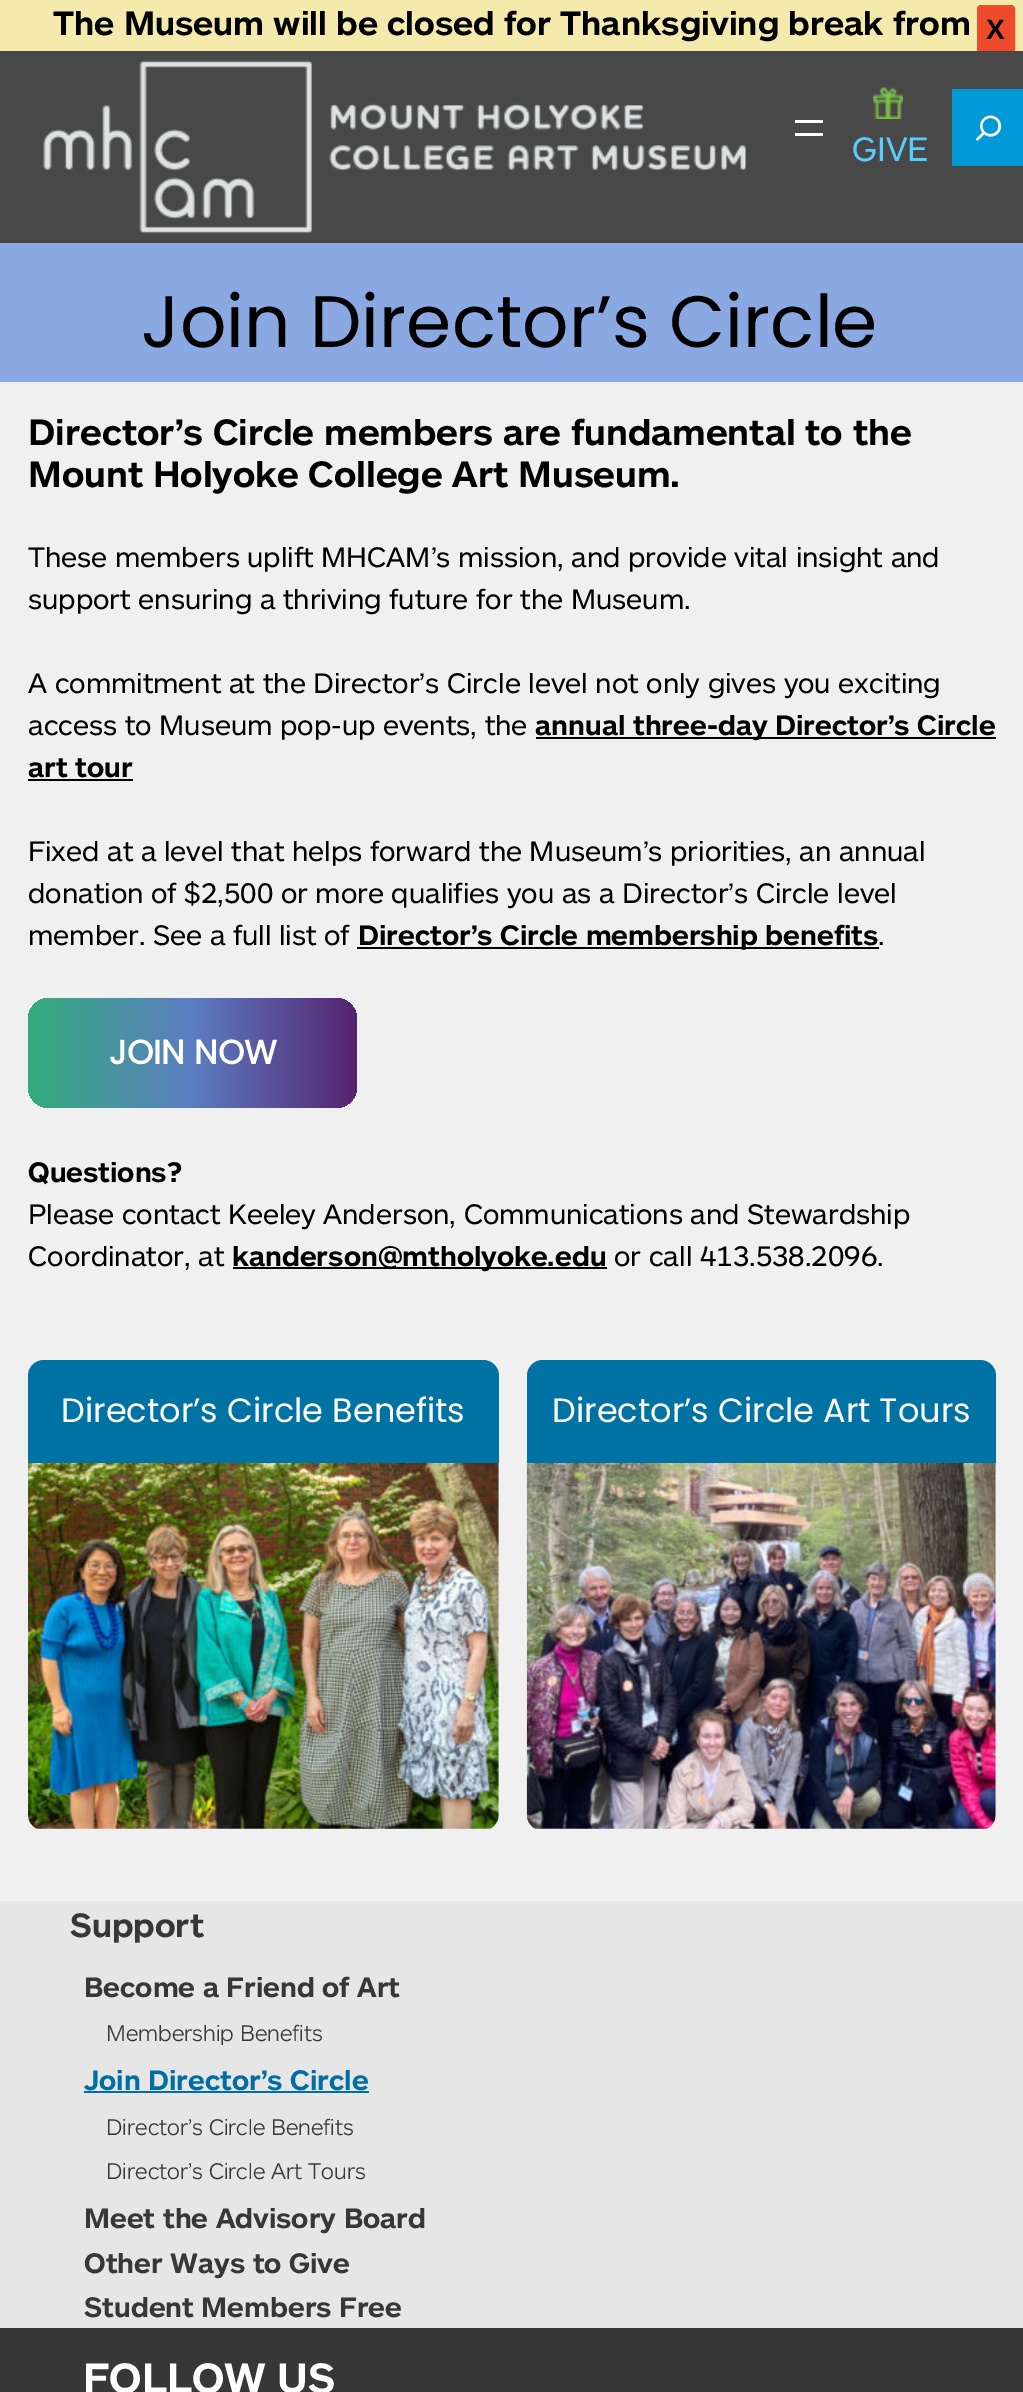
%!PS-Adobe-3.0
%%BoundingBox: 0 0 1023 2392
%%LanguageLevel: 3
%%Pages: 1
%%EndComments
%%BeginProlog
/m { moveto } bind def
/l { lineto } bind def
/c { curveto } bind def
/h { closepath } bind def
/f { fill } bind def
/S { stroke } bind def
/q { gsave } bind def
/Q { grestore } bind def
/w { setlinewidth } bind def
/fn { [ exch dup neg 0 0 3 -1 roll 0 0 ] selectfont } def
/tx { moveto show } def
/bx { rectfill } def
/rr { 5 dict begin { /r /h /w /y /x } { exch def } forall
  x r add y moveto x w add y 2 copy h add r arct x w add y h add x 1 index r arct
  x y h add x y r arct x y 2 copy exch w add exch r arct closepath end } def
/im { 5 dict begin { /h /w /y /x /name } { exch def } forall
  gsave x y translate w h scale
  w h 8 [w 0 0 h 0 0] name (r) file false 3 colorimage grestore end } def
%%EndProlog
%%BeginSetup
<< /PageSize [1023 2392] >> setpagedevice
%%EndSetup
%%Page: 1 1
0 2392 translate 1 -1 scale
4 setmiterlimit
0.941 setgray
0 0 1023 2392 bx
0.953 0.918 0.675 setrgbcolor
0 0 1023 51 bx
/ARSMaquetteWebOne-Bold 33.6 fn
0 setgray
(The Museum will be closed for Thanksgiving break from) 53 35 tx
0.282 setgray
0 51 1023 192 bx
q
0 0 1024 51 rectclip
0.933 0.294 0.169 setrgbcolor
978 6 36 47 3 rr q f Q
2 w
S
Q
/LiberationSans-Bold 28 fn
0 setgray
(X) 986 39 tx
(image0.raw) 43 60 703 174 im
1 setgray
795 120 28 3 bx
795 133 28 3 bx
0 0.6 0.847 setrgbcolor
952 89 71 77 bx
(image1.raw) 975 115 27 26 im
(image2.raw) 873 87 30 32 im
/ARSMaquetteWebOne-Regular 33.6 fn
0.345 0.808 1 setrgbcolor
(GIVE) 852 161 tx
0.541 0.663 0.886 setrgbcolor
0 243 1023 139 bx
/Poppins-Regular 72.75 fn
0 setgray
(Join Director’s Circle) 141 347 tx
/ARSMaquetteWebOne-Bold 36.4 fn
(Director’s Circle members are fundamental to the) 28 445 tx
(Mount Holyoke College Art Museum.) 28 487 tx
/ARSMaquetteWebOne-Regular 28 fn
(These members uplift MHCAM’s mission, and provide vital insight and) 28 567 tx
(support ensuring a thriving future for the Museum.) 28 609 tx
(A commitment at the Director’s Circle level not only gives you exciting) 28 693 tx
(access to Museum pop-up events, the) 28 735 tx
536 737 460 2 bx
/ARSMaquetteWebOne-Bold 28 fn
(annual three-day Director’s Circle) 535 735 tx
(art tour) 28 777 tx
28 779 105 2 bx
/ARSMaquetteWebOne-Regular 28 fn
(Fixed at a level that helps forward the Museum’s priorities, an annual) 28 861 tx
(donation of $2,500 or more qualifies you as a Director’s Circle level) 28 903 tx
(member. See a full list of) 28 945 tx
357 947 522 2 bx
/ARSMaquetteWebOne-Bold 28 fn
(Director’s Circle membership benefits) 358 945 tx
/ARSMaquetteWebOne-Regular 28 fn
(.) 878 945 tx
q 28 998 329 110 21 rr clip newpath
<< /ShadingType 2 /ColorSpace /DeviceRGB /Coords [28 1053 357 1053] /Extend [true true] /Function << /FunctionType 3 /Domain [0 1] /Functions [<< /FunctionType 2 /Domain [0 1] /C0 [0.2 0.675 0.486] /C1 [0.361 0.49 0.761] /N 1 >> << /FunctionType 2 /Domain [0 1] /C0 [0.361 0.49 0.761] /C1 [0.333 0.137 0.435] /N 1 >>] /Bounds [0.5] /Encode [0 1 0 1] >> >> shfill Q
/Poppins-Bold 33.6 fn
1 setgray
(JOIN NOW) 109 1064 tx
/ARSMaquetteWebOne-Bold 28 fn
0 setgray
(Questions?) 28 1182 tx
/ARSMaquetteWebOne-Regular 28 fn
(Please contact Keeley Anderson, Communications and Stewardship) 28 1224 tx
(Coordinator, at) 28 1266 tx
233 1267 374 2 bx
/ARSMaquetteWebOne-Bold 28 fn
(kanderson@mtholyoke.edu) 232 1266 tx
/ARSMaquetteWebOne-Regular 28 fn
(or call 413.538.2096.) 614 1266 tx
0 0.447 0.639 setrgbcolor
44 1360 m 483 1360 l 492 1360 499 1367 499 1376 c 499 1463 l 28 1463 l 28 1376 l 28 1367 35 1360 44 1360 c h f
/Poppins-Regular 33.6 fn
1 setgray
(Director’s Circle Benefits) 61 1422 tx
(image3.raw) 28 1463 471 366 im
0 0.447 0.639 setrgbcolor
543 1360 m 980 1360 l 989 1360 996 1367 996 1376 c 996 1463 l 527 1463 l 527 1376 l 527 1367 534 1360 543 1360 c h f
1 setgray
(Director’s Circle Art Tours) 552 1422 tx
(image4.raw) 526 1463 470 366 im
0.902 setgray
0 1901 1023 427 bx
/ARSMaquetteWebOne-Bold 33.6 fn
0.216 setgray
(Support) 70 1937 tx
/ARSMaquetteWebOne-Bold 28 fn
(Become a Friend of Art) 84 1997 tx
/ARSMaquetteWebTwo-Light 22.4 fn
(Membership Benefits) 106 2041 tx
/ARSMaquetteWebOne-Bold 28 fn
0 0.427 0.639 setrgbcolor
(Join Director’s Circle) 84 2090 tx
84 2091 285 2 bx
/ARSMaquetteWebTwo-Light 22.4 fn
0.216 setgray
(Director’s Circle Benefits) 106 2135 tx
(Director’s Circle Art Tours) 106 2179 tx
/ARSMaquetteWebOne-Bold 28 fn
(Meet the Advisory Board) 84 2228 tx
(Other Ways to Give) 84 2273 tx
(Student Members Free) 84 2317 tx
0 2328 1023 64 bx
/ARSMaquetteWebOne-Bold 42 fn
1 setgray
(FOLLOW US) 83 2393 tx
showpage
%%EOF
